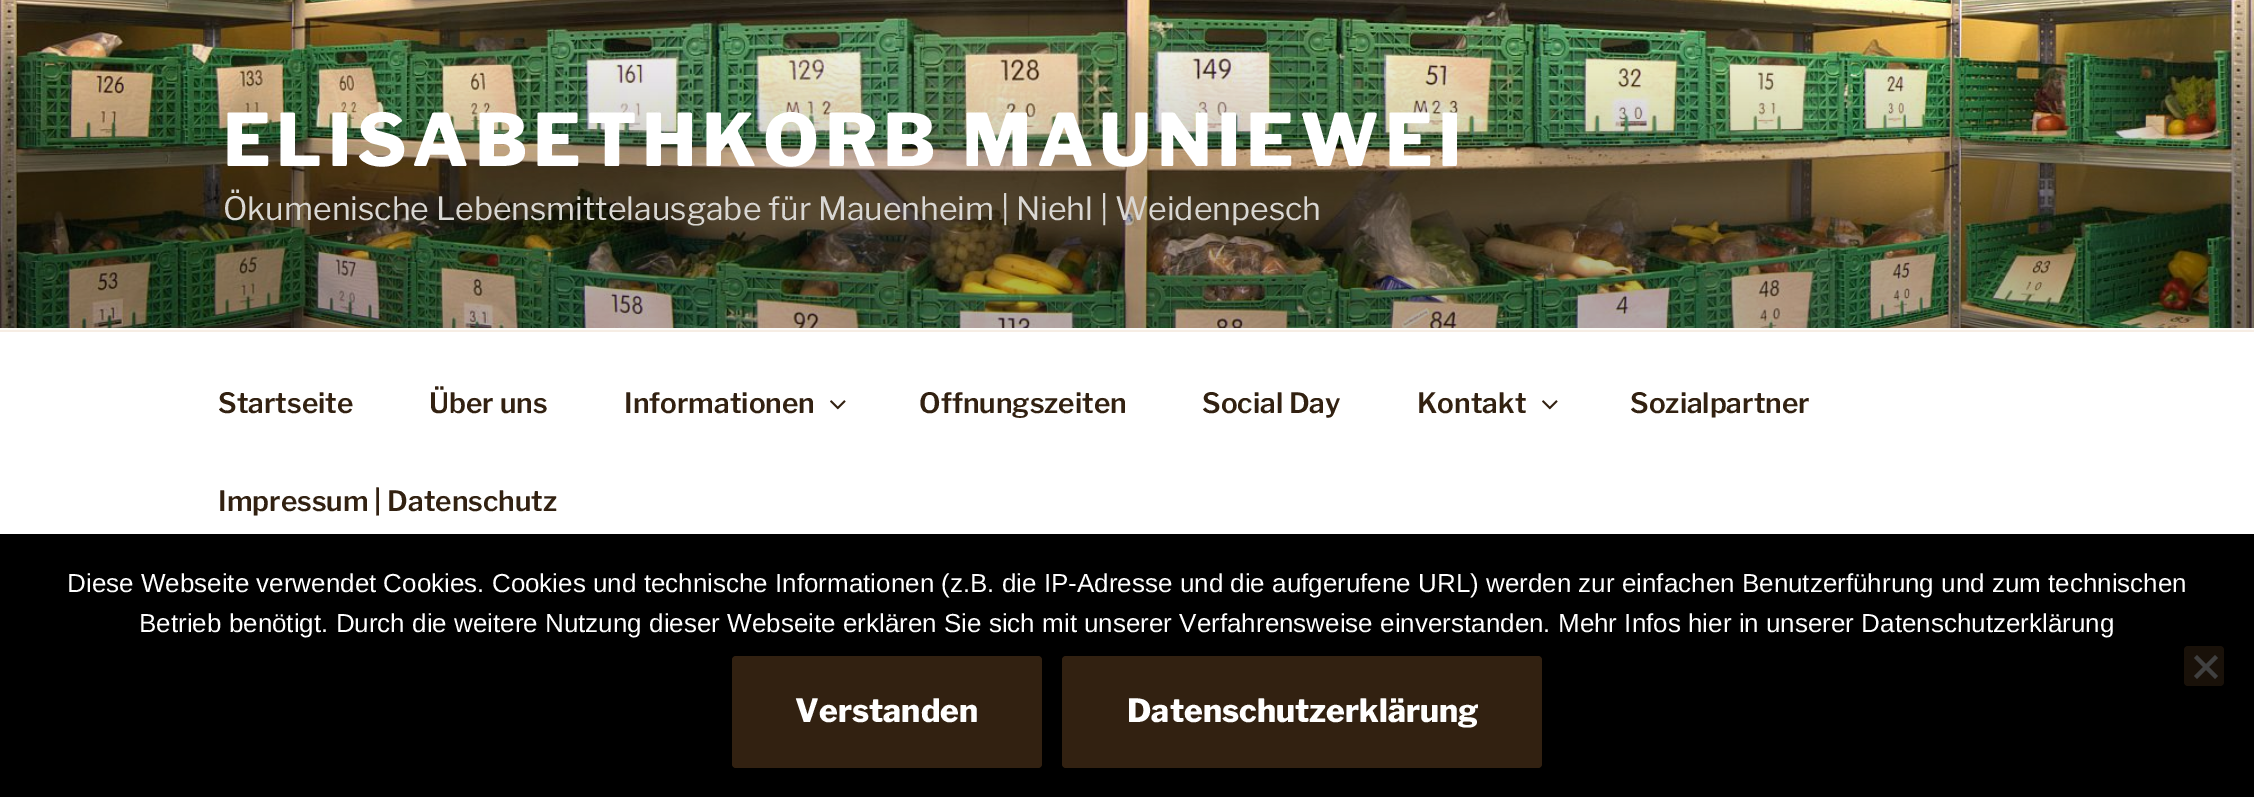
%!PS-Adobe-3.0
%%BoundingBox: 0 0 2254 797
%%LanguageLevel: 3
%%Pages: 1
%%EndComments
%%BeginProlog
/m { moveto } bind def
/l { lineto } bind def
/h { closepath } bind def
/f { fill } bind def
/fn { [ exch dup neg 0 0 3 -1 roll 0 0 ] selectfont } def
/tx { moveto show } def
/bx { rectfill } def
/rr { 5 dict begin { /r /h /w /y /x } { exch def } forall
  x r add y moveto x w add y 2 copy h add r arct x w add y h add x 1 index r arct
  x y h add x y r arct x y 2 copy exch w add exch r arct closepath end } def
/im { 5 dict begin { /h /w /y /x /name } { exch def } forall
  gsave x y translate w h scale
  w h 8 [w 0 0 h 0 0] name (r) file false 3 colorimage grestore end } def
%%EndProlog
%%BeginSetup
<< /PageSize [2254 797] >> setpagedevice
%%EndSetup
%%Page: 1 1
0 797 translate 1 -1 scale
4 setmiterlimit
0.988 0.98 0.969 setrgbcolor
0 0 2254 797 bx
(image0.raw) 0 0 2254 328 im
/LibreFranklin-ExtraBold 72 fn
1 setgray
223 166 m 5.75 0 (ELISABETHKORB MAUNIEWEI) ashow
/LibreFranklin-Regular 32 fn
0.851 0.843 0.827 setrgbcolor
(Ökumenische Lebensmittelausgabe für Mauenheim | Niehl | Weidenpesch) 223 220 tx
1 setgray
0 332 2254 202 bx
0.965 0.929 0.894 setrgbcolor
0 330 2254 2 bx
/LibreFranklin-SemiBold 28 fn
0.196 0.129 0.067 setrgbcolor
(Startseite) 218 413 tx
(Über uns) 429 413 tx
(Informationen) 624 413 tx
(image1.raw) 830 400 16 10 im
(Offnungszeiten) 919 413 tx
(Social Day) 1202 413 tx
(Kontakt) 1417 413 tx
(image1.raw) 1542 400 16 10 im
(Sozialpartner) 1630 413 tx
(Impressum | Datenschutz) 218 511 tx
0 setgray
0 534 2254 263 bx
/LiberationSans-Regular 26 fn
1 setgray
(Diese Webseite verwendet Cookies. Cookies und technische Informationen \(z.B. die IP-Adresse und die aufgerufene URL\) werden zur einfachen Benutzerführung und zum technischen) 67 592 tx
(Betrieb benötigt. Durch die weitere Nutzung dieser Webseite erklären Sie sich mit unserer Verfahrensweise einverstanden. Mehr Infos hier in unserer Datenschutzerklärung) 139 632 tx
0.098 0.067 0.035 setrgbcolor
2184 646 40 40 4 rr f
0.251 setgray
2215 655 m 2218 658 l 2197 679 l 2194 676 l h f
2194 658 m 2197 655 l 2218 676 l 2215 679 l h f
0.196 0.129 0.067 setrgbcolor
732 656 310 112 4 rr f
/LibreFranklin-ExtraBold 32 fn
1 setgray
(Verstanden) 795 722 tx
0.196 0.129 0.067 setrgbcolor
1062 656 480 112 4 rr f
1 setgray
(Datenschutzerklärung) 1127 722 tx
showpage
%%EOF
